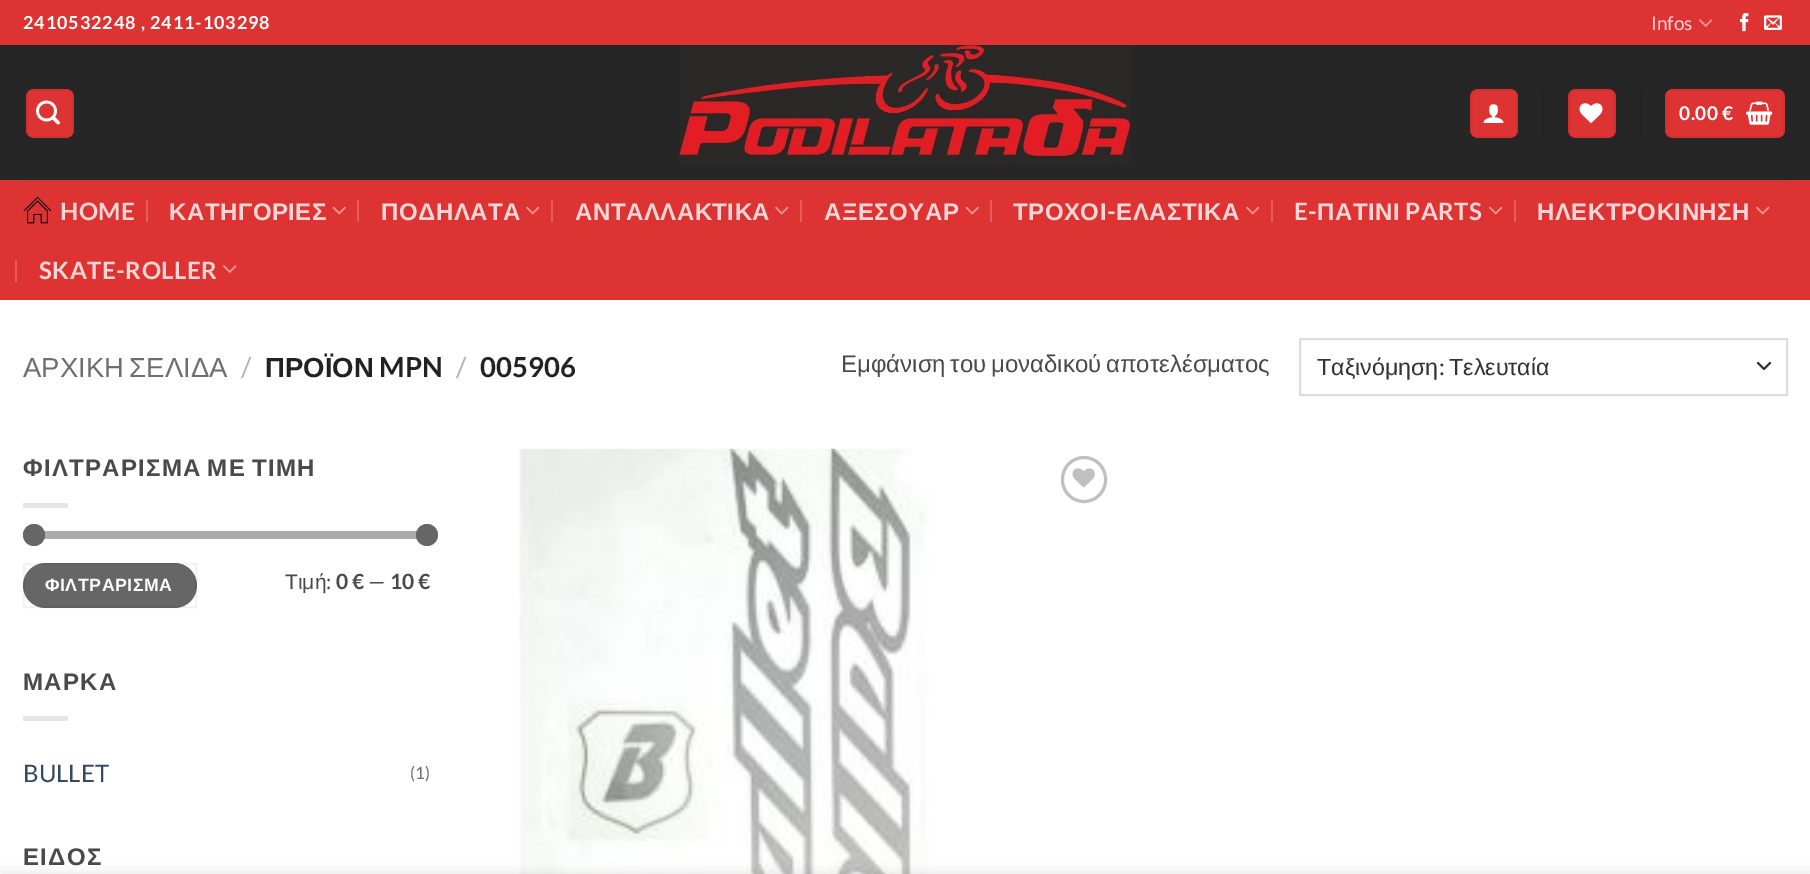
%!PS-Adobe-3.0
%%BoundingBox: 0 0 1810 874
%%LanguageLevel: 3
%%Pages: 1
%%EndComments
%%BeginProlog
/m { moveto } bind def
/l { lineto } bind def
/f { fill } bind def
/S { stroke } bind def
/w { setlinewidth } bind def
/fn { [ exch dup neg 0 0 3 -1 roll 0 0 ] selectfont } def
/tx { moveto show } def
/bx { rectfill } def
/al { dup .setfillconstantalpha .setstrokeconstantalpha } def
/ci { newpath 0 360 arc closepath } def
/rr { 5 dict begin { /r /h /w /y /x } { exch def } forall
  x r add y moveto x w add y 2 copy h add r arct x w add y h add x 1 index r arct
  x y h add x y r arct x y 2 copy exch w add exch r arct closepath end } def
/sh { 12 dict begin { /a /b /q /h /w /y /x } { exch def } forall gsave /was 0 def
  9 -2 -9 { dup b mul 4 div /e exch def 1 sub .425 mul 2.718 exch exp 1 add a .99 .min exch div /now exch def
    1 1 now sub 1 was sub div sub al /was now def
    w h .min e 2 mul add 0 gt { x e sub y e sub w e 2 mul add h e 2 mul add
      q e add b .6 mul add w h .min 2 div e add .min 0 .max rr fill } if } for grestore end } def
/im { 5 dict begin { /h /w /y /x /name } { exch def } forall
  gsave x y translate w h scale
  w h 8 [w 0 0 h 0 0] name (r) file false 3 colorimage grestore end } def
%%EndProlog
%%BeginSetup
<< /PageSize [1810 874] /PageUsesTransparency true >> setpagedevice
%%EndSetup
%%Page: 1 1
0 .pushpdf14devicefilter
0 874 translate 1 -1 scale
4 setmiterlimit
1 setgray
0 0 1810 874 bx
0.867 0.2 0.2 setrgbcolor
0 0 1810 45 bx
/Lato-Bold 18 fn
1 setgray
23 29 m 0.9 0 (2410532248 , 2411-103298) ashow
/Lato-Regular 19 fn
0.973 0.839 0.839 setrgbcolor
(Infos) 1651 30 tx
(image0.raw) 1699 19 14 8 im
(image1.raw) 1740 13 9 19 im
(image2.raw) 1764 15 18 15 im
0.149 setgray
0 45 1810 135 bx
0.867 0.2 0.2 setrgbcolor
26 89 48 49 8 rr f
0.05 al
0 setgray
2 w
27 90 46 47 rectstroke
1 al
(image3.raw) 36 100 24 25 im
(image4.raw) 679 45 452 119 im
0.867 0.2 0.2 setrgbcolor
1470 89 48 49 8 rr f
0.05 al
0 setgray
1471 90 46 47 rectstroke
1 al
(image5.raw) 1483 104 21 19 im
0.133 setgray
1542 90 2 45 bx
0.867 0.2 0.2 setrgbcolor
1568 89 48 49 8 rr f
0.05 al
0 setgray
1569 90 46 47 rectstroke
1 al
(image6.raw) 1579 103 24 20 im
0.133 setgray
1640 90 2 45 bx
0.867 0.2 0.2 setrgbcolor
1665 89 120 49 8 rr f
0.05 al
0 setgray
1666 90 118 47 rectstroke
/Lato-Bold 19 fn
1 al
1 setgray
1679 120 m 0.5 0 (0.00 €) ashow
(image7.raw) 1746 101 27 24 im
0.867 0.2 0.2 setrgbcolor
0 180 1810 120 bx
0.808 0.208 0.208 setrgbcolor
23 180 1765 2 bx
(image8.raw) 23 196 29 28 im
/Lato-Bold 24 fn
0.973 0.839 0.839 setrgbcolor
60 220 m 0.5 0 (HOME) ashow
0.894 0.361 0.361 setrgbcolor
146 200 2 22 bx
/LiberationSans-Bold 24 fn
0.973 0.839 0.839 setrgbcolor
169 220 m 0.5 0 (ΚΑΤΗΓΟΡΙΕΣ) ashow
(image9.raw) 332 206 14 9 im
0.894 0.361 0.361 setrgbcolor
357 200 2 22 bx
0.973 0.839 0.839 setrgbcolor
381 220 m 0.5 0 (ΠΟΔΗΛΑΤΑ) ashow
(image10.raw) 526 206 14 9 im
0.894 0.361 0.361 setrgbcolor
551 200 2 22 bx
0.973 0.839 0.839 setrgbcolor
575 220 m 0.5 0 (ΑΝΤΑΛΛΑΚΤΙΚΑ) ashow
(image10.raw) 775 206 14 9 im
0.894 0.361 0.361 setrgbcolor
800 200 2 22 bx
0.973 0.839 0.839 setrgbcolor
824 220 m 0.5 0 (ΑΞΕΣΟΥΑΡ) ashow
(image9.raw) 965 206 14 9 im
0.894 0.361 0.361 setrgbcolor
990 200 2 22 bx
0.973 0.839 0.839 setrgbcolor
1013 220 m 0.5 0 (ΤΡΟΧΟΙ) ashow
/Lato-Bold 24 fn
1107 220 m 0.5 0 (-) ashow
/LiberationSans-Bold 24 fn
1116 220 m 0.5 0 (ΕΛΑΣΤΙΚΑ) ashow
(image10.raw) 1246 206 14 9 im
0.894 0.361 0.361 setrgbcolor
1271 200 2 22 bx
/Lato-Bold 24 fn
0.973 0.839 0.839 setrgbcolor
1294 220 m 0.5 0 (E-) ashow
/LiberationSans-Bold 24 fn
1317 220 m 0.5 0 (ΠΑΤΙΝΙ) ashow
/Lato-Bold 24 fn
1405 220 m 0.5 0 (PARTS) ashow
(image10.raw) 1489 206 14 9 im
0.894 0.361 0.361 setrgbcolor
1514 200 2 22 bx
/LiberationSans-Bold 24 fn
0.973 0.839 0.839 setrgbcolor
1537 220 m 0.5 0 (ΗΛΕΚΤΡΟΚΙΝΗΣΗ) ashow
(image10.raw) 1756 206 14 9 im
0.894 0.361 0.361 setrgbcolor
15 260 2 22 bx
/Lato-Bold 24 fn
0.973 0.839 0.839 setrgbcolor
39 279 m 0.5 0 (SKATE-ROLLER) ashow
(image0.raw) 223 265 14 8 im
/LiberationSans-Regular 27.5 fn
0.431 setgray
23 377 m -2 0 32 (ΑΡΧΙΚΗ ΣΕΛΙΔΑ) widthshow
/Lato-Regular 27.5 fn
0.698 setgray
(/) 241 377 tx
/LiberationSans-Bold 27.5 fn
0.133 setgray
(ΠΡΟΪΟΝ) 265 377 tx
/Lato-Bold 27.5 fn
(MPN) 379 377 tx
/Lato-Regular 27.5 fn
0.698 setgray
(/) 456 377 tx
/Lato-Bold 27.5 fn
0.133 setgray
(005906) 480 377 tx
/LiberationSans-Regular 24 fn
0.29 setgray
841 372 m -2 0 32 (Εμφάνιση του μοναδικού αποτελέσματος) widthshow
0.2 setgray
1 setlinecap
1 setlinejoin
1758 363 m 1764 369 l 1770 363 l S
0.867 setgray
0 setlinecap
0 setlinejoin
1300 339 487 56 rectstroke
/LiberationSans-Regular 23.25 fn
0.2 setgray
(Ταξινόμηση) 1317 375 tx
/Lato-Regular 23.25 fn
(:) 1439 375 tx
/LiberationSans-Regular 23.25 fn
(Τελευταία) 1449 375 tx
/LiberationSans-Bold 24 fn
0.29 setgray
23 476 m -2 0 32 1.25 0 (ΦΙΛΤΡΑΡΙΣΜΑ ΜΕ ΤΙΜΗ) awidthshow
0.902 setgray
23 503 45 5 bx
0.945 setgray
23 531 408 8 4 rr f
0.5 al
0.4 setgray
23 531 408 8 4 rr f
1 al
34 535 11 ci f
427 535 11 ci f
23 563 174 45 22.5 rr f
0.05 al
0 setgray
24 564 172 43 rectstroke
/LiberationSans-Bold 17.75 fn
1 al
1 setgray
45 591 m 0.5 0 (ΦΙΛΤΡΑΡΙΣΜΑ) ashow
/LiberationSans-Regular 21 fn
0.29 setgray
(Τιμή) 285 589 tx
/Lato-Regular 21 fn
(:) 326 589 tx
/Lato-Bold 21 fn
(0 €) 336 589 tx
/Lato-Regular 21 fn
(—) 368 589 tx
/Lato-Bold 21 fn
(10 €) 390 589 tx
/LiberationSans-Bold 24 fn
23 690 m 1.25 0 (ΜΑΡΚΑ) ashow
0.902 setgray
23 716 45 5 bx
/Lato-Regular 24 fn
0.2 0.282 0.384 setrgbcolor
(BULLET) 23 782 tx
/Lato-Regular 17 fn
0.431 setgray
(\(1\)) 410 779 tx
/LiberationSans-Bold 24 fn
0.29 setgray
23 865 m 1.25 0 (ΕΙΔΟΣ) ashow
(image11.raw) 519 448 413 426 im
0.753 setgray
3 w
1062.5 457.5 43 44 21.5 rr S
(image12.raw) 1072 468 23 20 im
0 setgray
0 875 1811 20 0 7 0.14 sh
.poppdf14devicefilter showpage
%%EOF
